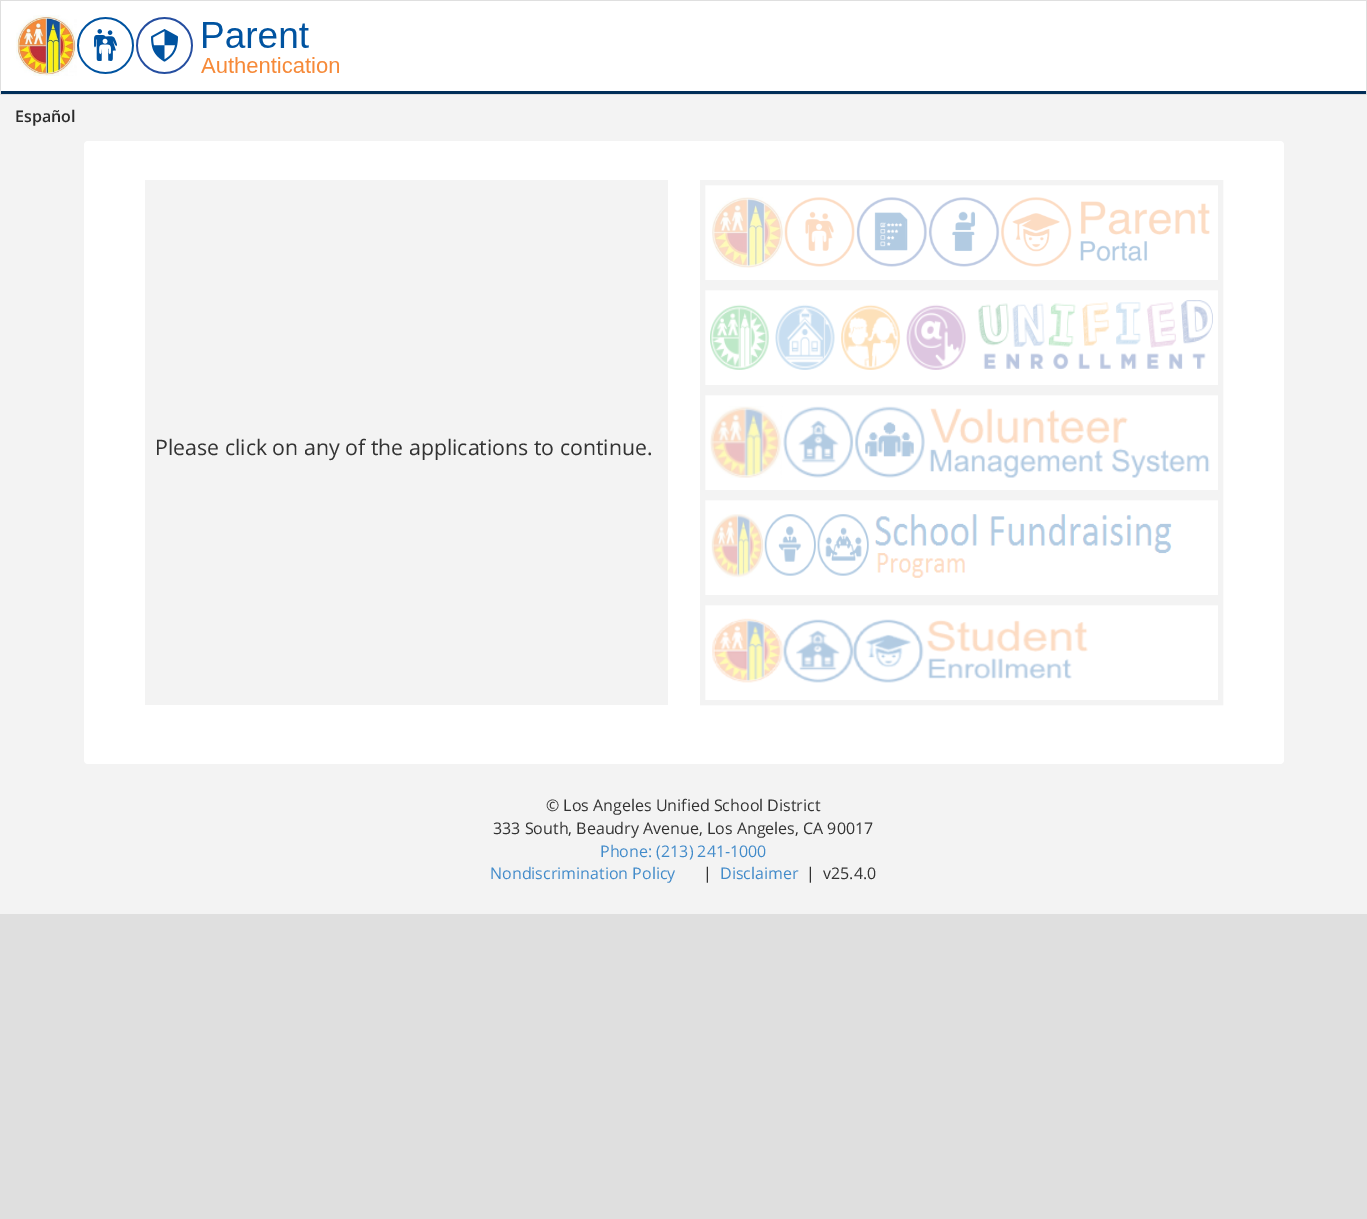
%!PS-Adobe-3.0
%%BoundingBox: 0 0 1367 1219
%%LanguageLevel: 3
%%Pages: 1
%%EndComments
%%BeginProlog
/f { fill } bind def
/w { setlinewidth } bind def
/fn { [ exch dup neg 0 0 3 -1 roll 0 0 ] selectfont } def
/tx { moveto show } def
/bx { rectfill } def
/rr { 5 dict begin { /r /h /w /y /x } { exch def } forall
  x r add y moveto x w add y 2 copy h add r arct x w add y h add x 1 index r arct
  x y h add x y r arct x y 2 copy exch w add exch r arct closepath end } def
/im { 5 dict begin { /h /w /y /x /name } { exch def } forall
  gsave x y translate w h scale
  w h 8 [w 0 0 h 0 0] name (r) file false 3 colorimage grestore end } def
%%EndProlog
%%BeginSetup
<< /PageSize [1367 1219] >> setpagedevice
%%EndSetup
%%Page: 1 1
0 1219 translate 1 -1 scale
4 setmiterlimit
0.875 setgray
0 0 1367 1219 bx
1 setgray
1 1 1365 90 bx
0 0.18 0.345 setrgbcolor
1 91 1365 3 bx
(image0.raw) 16 15 323 61 im
0.953 setgray
0 95 1367 819 bx
/OpenSans-SemiBold 16 fn
0.169 setgray
(Español) 15 122 tx
1 setgray
84 141 1200 623 4 rr f
0.953 setgray
145 180 523 525 bx
/OpenSans-Regular 21.3 fn
0.2 setgray
(Please click on any of the applications to continue.) 155 455 tx
0.953 setgray
5 w
702.5 182.5 518 100 rectstroke
(image1.raw) 712 197 498 71 im
702.5 287.5 518 100 rectstroke
(image2.raw) 710 300 503 70 im
702.5 392.5 518 100 rectstroke
(image3.raw) 710 406 500 72 im
702.5 497.5 518 100 rectstroke
(image4.raw) 711 514 461 64 im
702.5 602.5 518 100 rectstroke
(image5.raw) 712 618 376 65 im
/OpenSans-Regular 16 fn
0.2 setgray
(© Los Angeles Unified School District) 546 811 tx
(333 South, Beaudry Avenue, Los Angeles, CA 90017) 493 834 tx
0.259 0.545 0.792 setrgbcolor
(Phone: \(213\) 241-1000) 600 857 tx
(Nondiscrimination Policy) 490 879 tx
0.2 setgray
(|) 703 879 tx
0.259 0.545 0.792 setrgbcolor
(Disclaimer) 720 879 tx
0.2 setgray
(|) 806 879 tx
(v25.4.0) 823 879 tx
showpage
%%EOF
